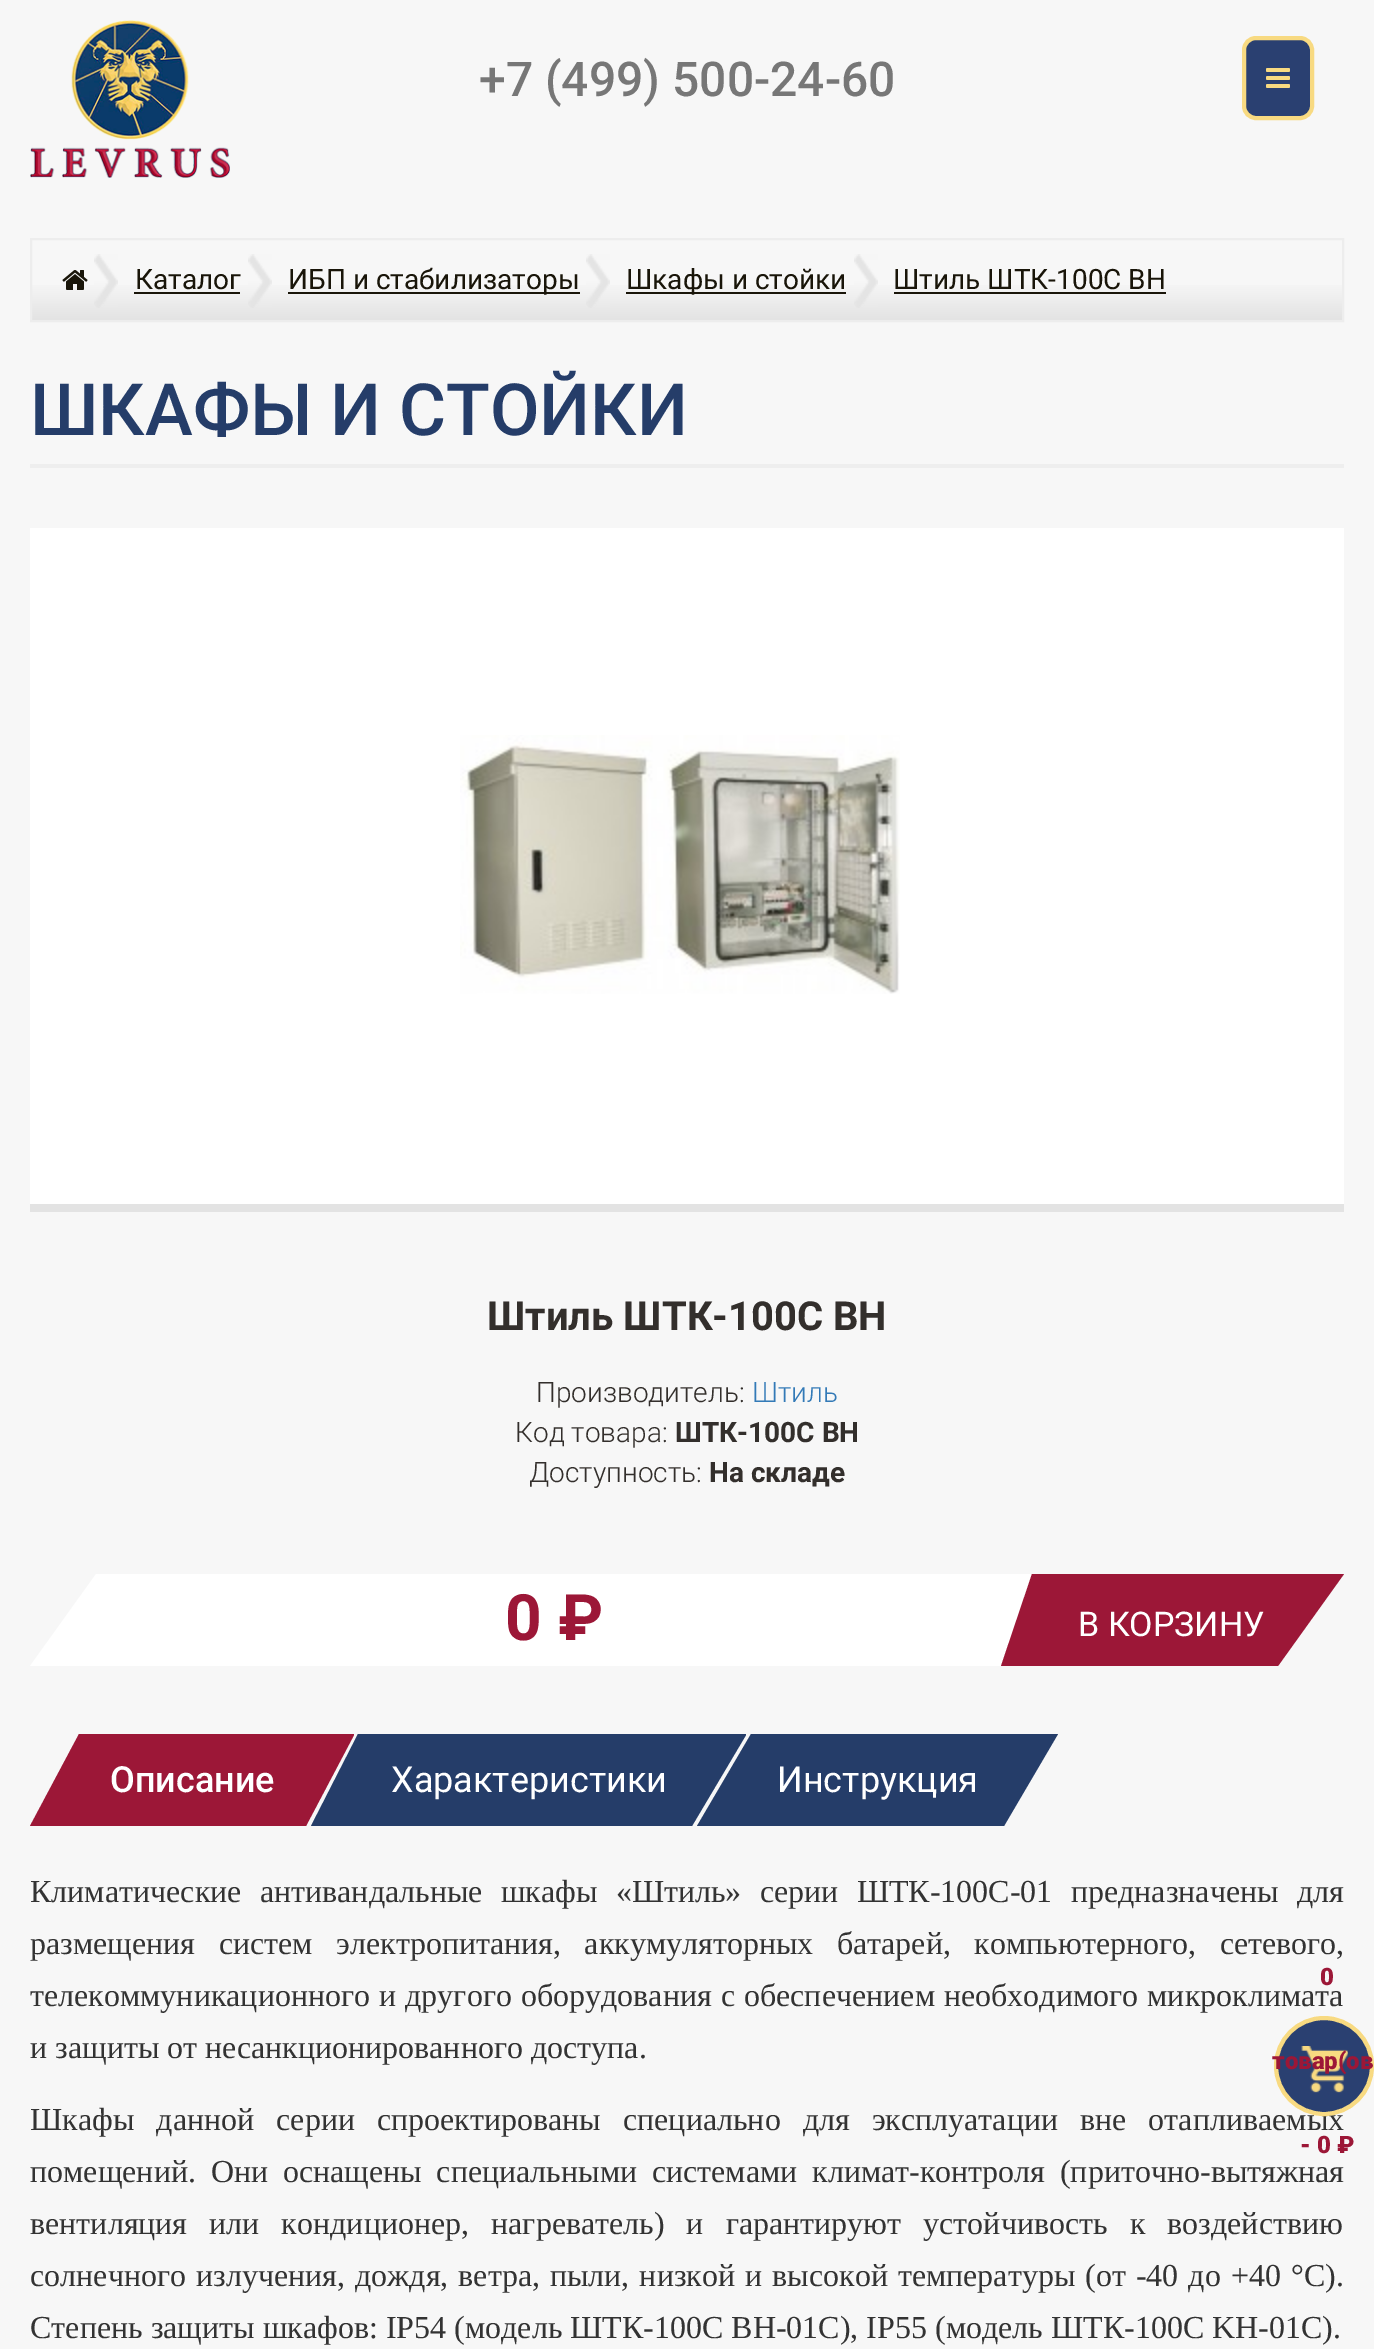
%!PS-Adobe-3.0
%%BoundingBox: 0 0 1374 2349
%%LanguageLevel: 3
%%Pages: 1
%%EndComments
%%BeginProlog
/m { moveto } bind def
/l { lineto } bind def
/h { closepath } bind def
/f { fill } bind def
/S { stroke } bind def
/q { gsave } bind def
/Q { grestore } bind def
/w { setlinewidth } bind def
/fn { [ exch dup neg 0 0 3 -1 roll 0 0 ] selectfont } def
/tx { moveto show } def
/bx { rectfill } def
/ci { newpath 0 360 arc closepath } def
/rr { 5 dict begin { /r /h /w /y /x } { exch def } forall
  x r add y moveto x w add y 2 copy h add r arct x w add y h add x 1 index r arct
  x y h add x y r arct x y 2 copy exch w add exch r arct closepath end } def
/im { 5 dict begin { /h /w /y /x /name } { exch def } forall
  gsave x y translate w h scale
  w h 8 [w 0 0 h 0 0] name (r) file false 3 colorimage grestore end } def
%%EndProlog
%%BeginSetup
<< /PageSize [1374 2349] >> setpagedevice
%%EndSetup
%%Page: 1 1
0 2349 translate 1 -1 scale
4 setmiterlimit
0.969 setgray
0 0 1374 2349 bx
(image0.raw) 30 20 200 158 im
/Roboto-Medium 48 fn
0.467 setgray
(+7 \(499\) 500-24-60) 479 96 tx
0.165 0.251 0.443 setrgbcolor
1244 38 68 80 12 rr q f Q
0.973 0.855 0.506 setrgbcolor
4 w
S
(image1.raw) 1266 68 24 20 im
/LiberationSerif-Regular 32 fn
0.2 setgray
30 2130 m 14 0 32 (Шкафы данной серии спроектированы специально для эксплуатации вне отапливаемых) widthshow
0.165 0.251 0.443 setrgbcolor
1324 2066 48 ci q f Q
0.973 0.855 0.506 setrgbcolor
S
/Roboto-Black 24 fn
0.612 0.09 0.216 setrgbcolor
(0) 1320 1985 tx
(image2.raw) 1301 2046 47 47 im
(товар\(ов) 1272 2069 tx
(- 0 ₽) 1300 2153 tx
q 32 285 m 1342 285 l 1342 320 l 32 320 l h clip newpath
<< /ShadingType 2 /ColorSpace /DeviceRGB /Coords [687 240 687 320] /Extend [true true] /Function << /FunctionType 3 /Domain [0 1] /Functions [<< /FunctionType 2 /Domain [0 1] /C0 [0.965 0.965 0.965] /C1 [0.969 0.969 0.969] /N 1 >> << /FunctionType 2 /Domain [0 1] /C0 [0.969 0.969 0.969] /C1 [0.89 0.89 0.89] /N 1 >>] /Bounds [0.5] /Encode [0 1 0 1] >> >> shfill Q
0.929 setgray
2 w
31 239 1312 82 rectstroke
(image3.raw) 62 270 26 20 im
(image4.raw) 94 254 24 54 im
/Roboto-Regular 28 fn
0.098 0.082 0.035 setrgbcolor
(Каталог) 135 289 tx
134 292 106 2 bx
(image4.raw) 248 254 24 54 im
288 292 292 2 bx
(ИБП и стабилизаторы) 288 289 tx
(image4.raw) 586 254 24 54 im
626 292 220 2 bx
(Шкафы и стойки) 626 289 tx
(image4.raw) 854 254 24 54 im
(Штиль ШТК-100С ВН) 893 289 tx
894 292 272 2 bx
0.933 setgray
30 464 1314 4 bx
/Roboto-Medium 72 fn
0.145 0.239 0.412 setrgbcolor
(ШКАФЫ И СТОЙКИ) 30 435 tx
1 setgray
30 528 1314 676 bx
0.89 setgray
30 1204 1314 8 bx
(image5.raw) 460 735 440 259 im
/Roboto-Bold 40 fn
0.2 0.184 0.173 setrgbcolor
(Штиль ШТК-100С ВН) 487 1330 tx
/Roboto-Light 28 fn
(Производитель:) 536 1402 tx
0.2 0.478 0.718 setrgbcolor
(Штиль) 752 1402 tx
0.2 0.184 0.173 setrgbcolor
(Код товара:) 515 1442 tx
/Roboto-Bold 28 fn
(ШТК-100С ВН) 675 1442 tx
/Roboto-Light 28 fn
(Доступность:) 529 1482 tx
/Roboto-Bold 28 fn
(На складе) 709 1482 tx
1 setgray
96 1574 m 30 1666 l 1278 1666 l 1344 1574 l h f
/Roboto-Bold 64 fn
0.612 0.09 0.216 setrgbcolor
(0 ₽) 505 1640 tx
1032 1574 m 1001 1666 l 1278 1666 l 1344 1574 l h f
/Roboto-Regular 34 fn
1 setgray
(В КОРЗИНУ) 1078 1636 tx
0.612 0.09 0.216 setrgbcolor
79 1734 m 354 1734 l 354 1735 l 306 1826 l 30 1826 l h f
/Roboto-Medium 36 fn
1 setgray
(Описание) 110 1792 tx
0.145 0.239 0.412 setrgbcolor
358 1734 m 746 1734 l 746 1735 l 692 1826 l 311 1826 l h f
/Roboto-Regular 36 fn
1 setgray
(Характеристики) 391 1792 tx
0.145 0.239 0.412 setrgbcolor
751 1734 m 697 1826 l 1004 1826 l 1058 1734 l h f
1 setgray
(Инструкция) 777 1792 tx
/LiberationSerif-Regular 32 fn
0.2 setgray
30 1902 m 10.25 0 32 (Климатические антивандальные шкафы «Штиль» серии ШТК-100С-01 предназначены для) widthshow
30 1954 m 15.5 0 32 (размещения систем электропитания, аккумуляторных батарей, компьютерного, сетевого,) widthshow
30 2006 m 1 0 32 (телекоммуникационного и другого оборудования с обеспечением необходимого микроклимата) widthshow
(и защиты от несанкционированного доступа.) 30 2058 tx
30 2182 m 6.75 0 32 (помещений. Они оснащены специальными системами климат-контроля \(приточно-вытяжная) widthshow
30 2234 m 14 0 32 (вентиляция или кондиционер, нагреватель\) и гарантируют устойчивость к воздействию) widthshow
30 2286 m 2 0 32 (солнечного излучения, дождя, ветра, пыли, низкой и высокой температуры \(от -40 до +40 °С\).) widthshow
(Степень защиты шкафов: IP54 \(модель ШТК-100С ВН-01C\), IP55 \(модель ШТК-100С KН-01C\).) 30 2338 tx
showpage
%%EOF
